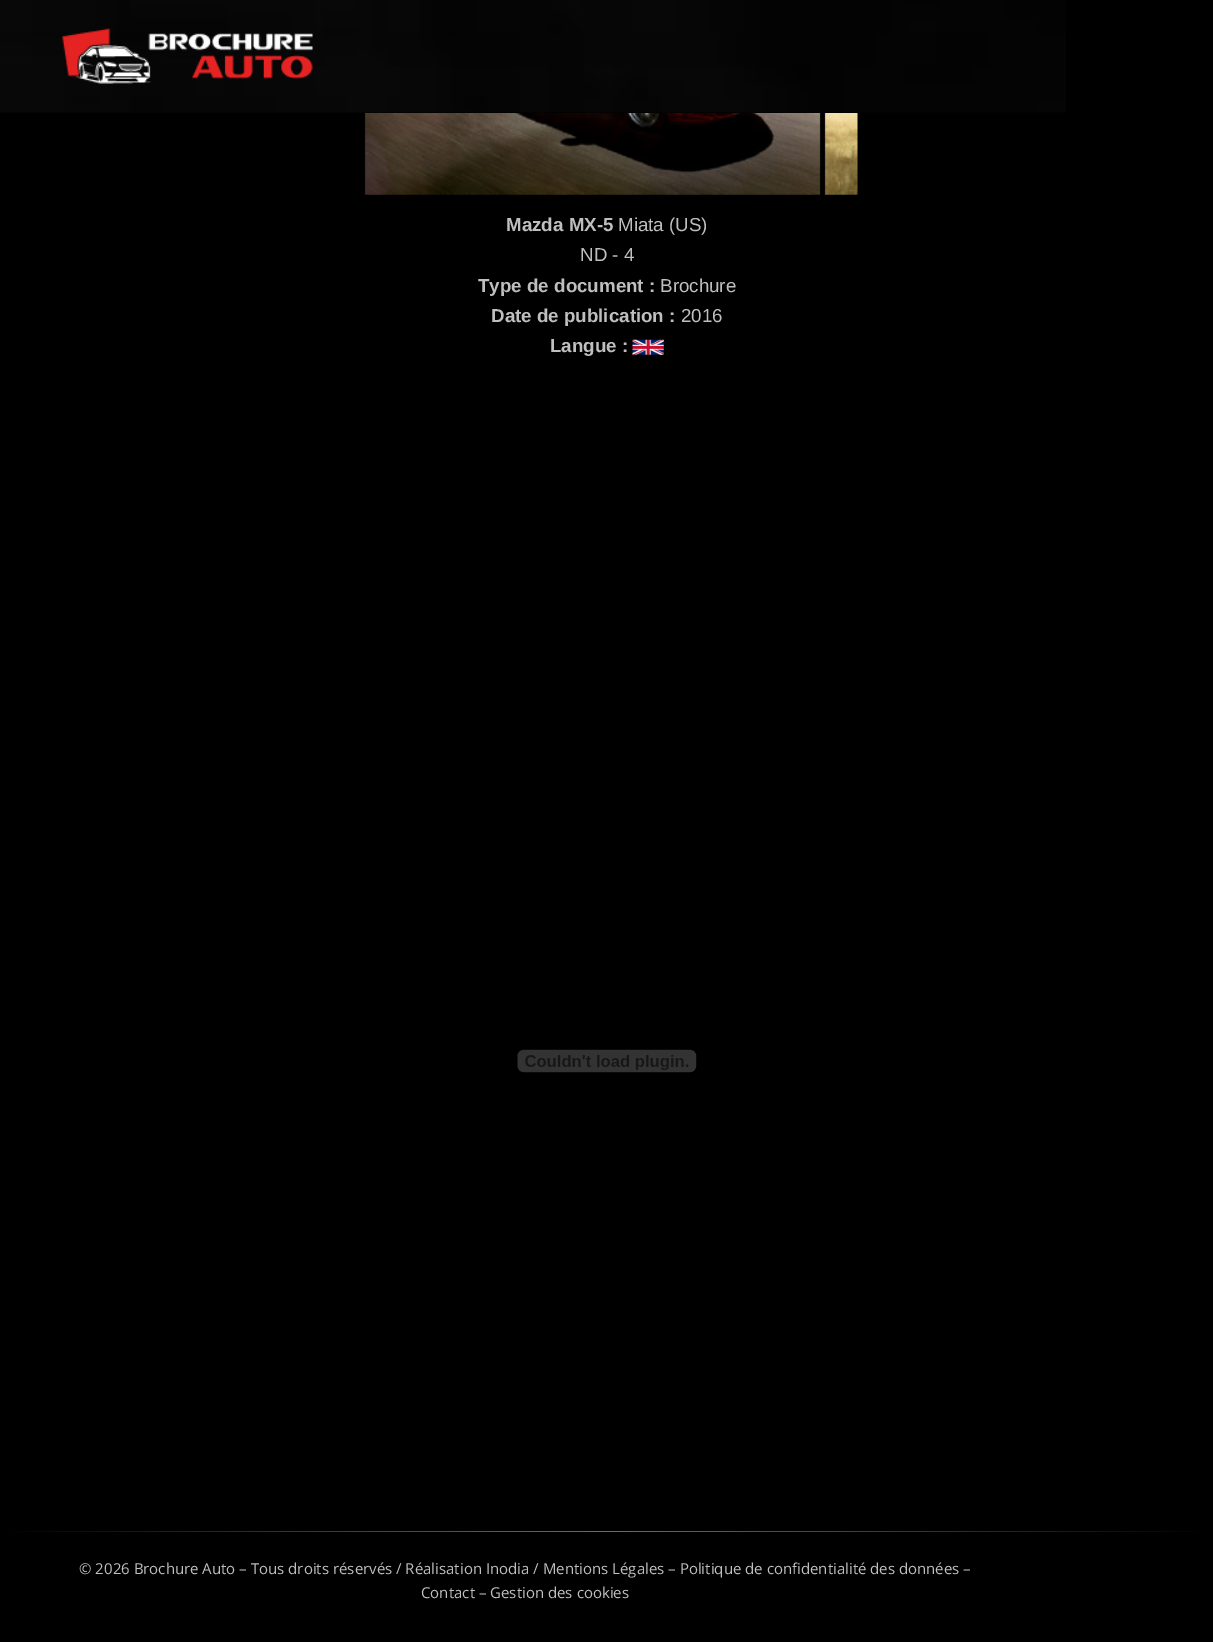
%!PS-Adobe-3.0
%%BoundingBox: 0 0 1213 1642
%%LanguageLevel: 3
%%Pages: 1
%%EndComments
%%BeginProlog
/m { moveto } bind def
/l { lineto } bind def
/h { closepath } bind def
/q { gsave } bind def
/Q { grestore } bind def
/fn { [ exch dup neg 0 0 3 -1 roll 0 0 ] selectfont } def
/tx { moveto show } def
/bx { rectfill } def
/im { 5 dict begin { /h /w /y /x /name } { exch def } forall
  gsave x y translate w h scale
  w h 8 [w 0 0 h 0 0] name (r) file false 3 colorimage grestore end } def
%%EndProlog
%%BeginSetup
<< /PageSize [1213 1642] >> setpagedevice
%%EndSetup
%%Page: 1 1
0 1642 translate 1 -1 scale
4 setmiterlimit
0 setgray
0 0 1213 1642 bx
(image0.raw) 0 0 1066 113 im
(image1.raw) 62 28 251 56 im
(image2.raw) 364 113 494 82 im
/LiberationSans-Bold 18.75 fn
0.749 setgray
(Mazda MX-5) 506 231 tx
/LiberationSans-Regular 18.75 fn
(Miata \(US\)) 618 231 tx
(ND - 4) 580 261 tx
/LiberationSans-Bold 18.75 fn
(Type de document :) 478 292 tx
/LiberationSans-Regular 18.75 fn
(Brochure) 660 292 tx
/LiberationSans-Bold 18.75 fn
(Date de publication :) 491 322 tx
/LiberationSans-Regular 18.75 fn
(2016) 681 322 tx
/LiberationSans-Bold 18.75 fn
(Langue :) 550 352 tx
(image3.raw) 632 339 32 16 im
(image4.raw) 517 1049 180 24 im
q 0 1531 m 1213 1531 l 1213 1532 l 0 1532 l h clip newpath
<< /ShadingType 2 /ColorSpace /DeviceRGB /Coords [0 1532 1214 1532] /Extend [true true] /Function << /FunctionType 3 /Domain [0 1] /Functions [<< /FunctionType 2 /Domain [0 1] /C0 [0 0 0] /C1 [0.941 0.208 0.173] /N 1 >> << /FunctionType 2 /Domain [0 1] /C0 [0.941 0.208 0.173] /C1 [0 0 0] /N 1 >>] /Bounds [0.5] /Encode [0 1 0 1] >> >> shfill Q
/OpenSans-Regular 15 fn
(© 2026 Brochure Auto – Tous droits réservés / Réalisation Inodia / Mentions Légales – Politique de confidentialité des données –) 79 1574 tx
(Contact – Gestion des cookies) 421 1598 tx
showpage
%%EOF
